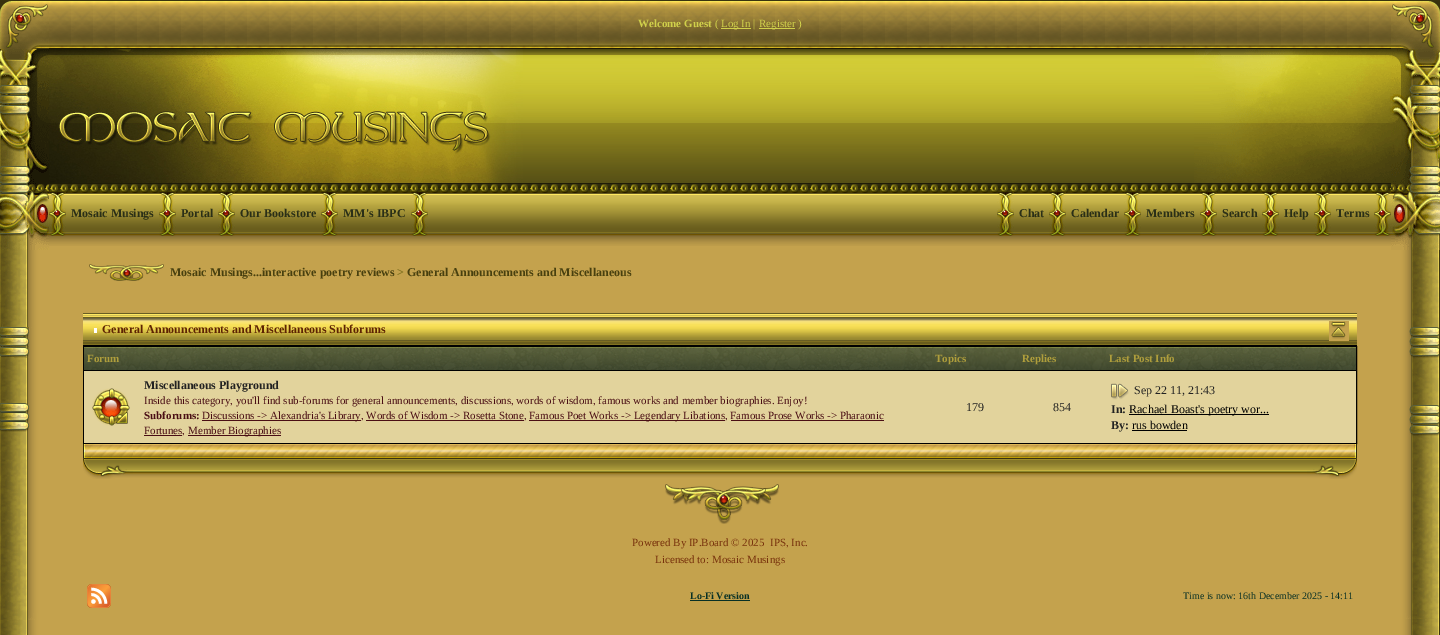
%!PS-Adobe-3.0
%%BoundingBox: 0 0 1440 635
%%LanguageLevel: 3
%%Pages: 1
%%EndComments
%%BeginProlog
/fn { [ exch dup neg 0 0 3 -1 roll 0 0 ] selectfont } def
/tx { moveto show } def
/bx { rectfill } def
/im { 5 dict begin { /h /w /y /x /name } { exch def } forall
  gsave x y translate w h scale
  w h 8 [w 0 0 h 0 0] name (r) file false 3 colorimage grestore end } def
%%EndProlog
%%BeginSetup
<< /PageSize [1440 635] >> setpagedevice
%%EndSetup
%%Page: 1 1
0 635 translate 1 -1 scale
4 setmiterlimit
0.224 0.204 0.059 setrgbcolor
0 0 1440 635 bx
(image0.raw) 0 1 49 48 im
(image1.raw) 49 1 1342 48 im
/LiberationSerif-Bold 11 fn
0.816 0.816 0.294 setrgbcolor
(Welcome Guest) 638 27 tx
/LiberationSerif-Regular 11 fn
(\() 715 27 tx
721 28 30 1 bx
(Log In |) 721 27 tx
759 28 36 1 bx
(Register \)) 759 27 tx
(image2.raw) 1391 1 49 48 im
(image3.raw) 0 49 49 201 im
(image4.raw) 523 49 671 134 im
(image5.raw) 1194 49 197 134 im
(image6.raw) 49 49 474 134 im
(image7.raw) 49 183 1342 63 im
(image8.raw) 49 192 17 44 im
/LiberationSerif-Bold 12 fn
0.165 0.184 0.09 setrgbcolor
(Mosaic Musings) 71 217 tx
(image8.raw) 159 192 17 44 im
(Portal) 181 217 tx
(image8.raw) 218 192 17 44 im
(Our Bookstore) 240 217 tx
(image8.raw) 321 192 17 44 im
(MM's IBPC) 343 217 tx
(image8.raw) 411 192 17 44 im
(image8.raw) 997 192 17 44 im
(Chat) 1019 217 tx
(image8.raw) 1049 192 17 44 im
(Calendar) 1071 217 tx
(image8.raw) 1124 192 17 44 im
(Members) 1146 217 tx
(image8.raw) 1200 192 17 44 im
(Search) 1222 217 tx
(image8.raw) 1262 192 17 44 im
(Help) 1284 217 tx
(image8.raw) 1314 192 17 44 im
(Terms) 1336 217 tx
(image8.raw) 1374 192 17 44 im
(image9.raw) 1391 49 49 201 im
(image10.raw) 0 250 49 385 im
0.769 0.635 0.302 setrgbcolor
49 246 1342 389 bx
(image11.raw) 89 264 75 17 im
0.282 0.251 0.059 setrgbcolor
(Mosaic Musings...interactive poetry reviews) 170 276 tx
0.486 0.435 0.118 setrgbcolor
(>) 397 276 tx
0.282 0.251 0.059 setrgbcolor
(General Announcements and Miscellaneous) 407 276 tx
(image12.raw) 83 313 1274 32 im
0 setgray
83 345 1274 1 bx
1 setgray
94 328 3 5 bx
0.365 0.137 0.012 setrgbcolor
(General Announcements and Miscellaneous Subforums) 102 333 tx
(image13.raw) 1329 321 20 20 im
0 setgray
83.5 346.5 1273 97 rectstroke
(image14.raw) 84 347 848 23 im
84 370 1272 1 bx
/LiberationSerif-Bold 11 fn
0.686 0.62 0.235 setrgbcolor
(Forum) 87 362 tx
(image15.raw) 932 347 87 23 im
(Topics) 935 362 tx
(image16.raw) 1019 347 87 23 im
(Replies) 1022 362 tx
(image17.raw) 1106 347 250 23 im
(Last Post Info) 1109 362 tx
0.886 0.827 0.612 setrgbcolor
84 371 1272 72 bx
(image18.raw) 92 388 38 38 im
/LiberationSerif-Bold 12 fn
0.133 setgray
(Miscellaneous Playground) 144 389 tx
/LiberationSerif-Regular 11 fn
0.29 0.055 0.078 setrgbcolor
(Inside this category, you'll find sub-forums for general announcements, discussions, words of wisdom, famous works and member biographies. Enjoy!) 144 404 tx
/LiberationSerif-Bold 11 fn
(Subforums:) 144 419 tx
202 420 159 1 bx
/LiberationSerif-Regular 11 fn
(Discussions -> Alexandria's Library, Words of Wisdom -> Rosetta Stone,) 202 419 tx
366 420 158 1 bx
529 420 196 1 bx
(Famous Poet Works -> Legendary Libations, Famous Prose Works -> Pharaonic) 529 419 tx
731 420 153 1 bx
144 435 38 1 bx
(Fortunes,) 144 434 tx
188 435 93 1 bx
(Member Biographies) 188 434 tx
/LiberationSerif-Regular 12 fn
0.133 setgray
(179) 966 411 tx
(854) 1053 411 tx
(image19.raw) 1111 383 18 17 im
(Sep 22 11, 21:43) 1134 394 tx
/LiberationSerif-Bold 12 fn
(In:) 1111 413 tx
0 setgray
1129 414 140 1 bx
/LiberationSerif-Regular 12 fn
(Rachael Boast's poetry wor...) 1129 413 tx
/LiberationSerif-Bold 12 fn
0.133 setgray
(By:) 1111 429 tx
/LiberationSerif-Regular 12 fn
0 setgray
(rus bowden) 1132 429 tx
1132 430 55 1 bx
(image20.raw) 133 444 1174 34 im
(image21.raw) 83 444 50 35 im
(image22.raw) 1307 444 50 35 im
(image23.raw) 665 484 114 40 im
/LiberationSerif-Regular 11 fn
0.475 0.2 0.051 setrgbcolor
(Powered By IP.Board © 2025) 632 546 tx
(IPS, Inc.) 770 546 tx
(Licensed to: Mosaic Musings) 655 563 tx
(image24.raw) 87 584 24 24 im
/LiberationSerif-Bold 10 fn
0.027 0.188 0.145 setrgbcolor
(Lo-Fi Version) 690 599 tx
690 600 60 1 bx
/LiberationSerif-Regular 10 fn
(Time is now: 16th December 2025 - 14:11) 1183 599 tx
(image25.raw) 1391 250 48 385 im
showpage
%%EOF
